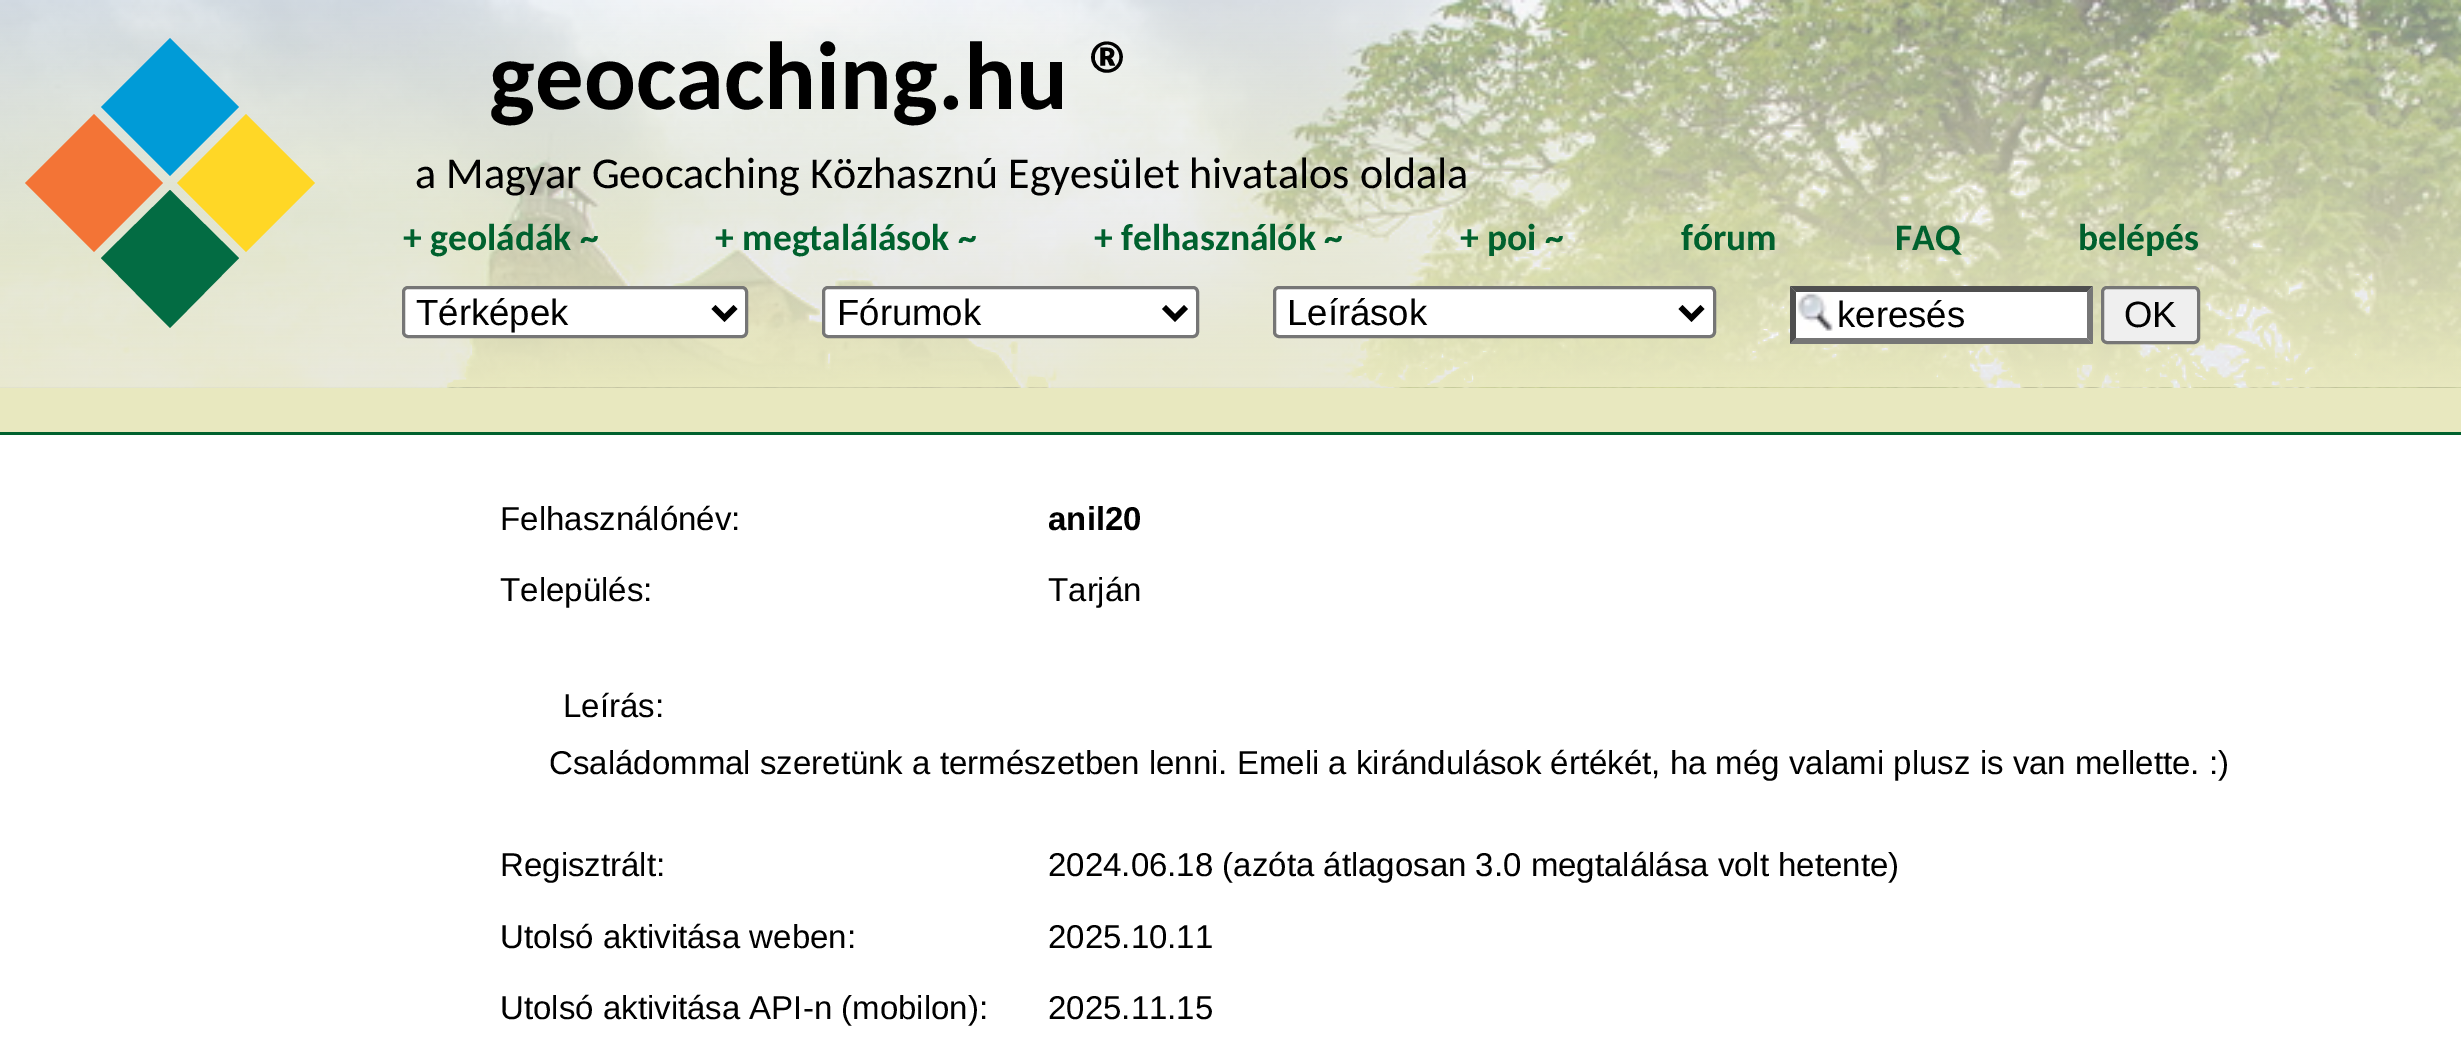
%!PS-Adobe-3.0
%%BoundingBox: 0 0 2461 1038
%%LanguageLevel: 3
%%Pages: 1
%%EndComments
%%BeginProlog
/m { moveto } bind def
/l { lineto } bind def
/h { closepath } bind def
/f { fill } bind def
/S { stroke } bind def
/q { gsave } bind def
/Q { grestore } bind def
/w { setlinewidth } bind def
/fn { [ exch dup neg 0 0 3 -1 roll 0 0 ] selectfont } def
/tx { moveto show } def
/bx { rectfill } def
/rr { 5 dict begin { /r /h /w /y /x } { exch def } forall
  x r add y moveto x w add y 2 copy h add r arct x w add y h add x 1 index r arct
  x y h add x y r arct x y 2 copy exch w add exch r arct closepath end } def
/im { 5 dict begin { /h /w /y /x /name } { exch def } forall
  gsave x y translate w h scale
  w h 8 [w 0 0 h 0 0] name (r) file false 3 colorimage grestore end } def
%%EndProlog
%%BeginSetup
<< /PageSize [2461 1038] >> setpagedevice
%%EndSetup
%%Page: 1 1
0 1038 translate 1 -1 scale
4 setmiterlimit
0.91 0.91 0.749 setrgbcolor
0 0 2461 1038 bx
(image0.raw) 0 0 2461 388 im
0.953 0.455 0.212 setrgbcolor
163 183 m 94 252 l 25 183 l 94 114 l h f
0 0.608 0.843 setrgbcolor
239 107 m 170 176 l 101 107 l 170 38 l h f
0.012 0.424 0.263 setrgbcolor
239 258 m 170 328 l 101 258 l 170 190 l h f
1 0.843 0.149 setrgbcolor
315 183 m 246 252 l 177 183 l 246 114 l h f
/Carlito-Bold 96.75 fn
0 setgray
(geocaching.hu ®) 489 109 tx
/Carlito-Regular 44 fn
(a Magyar Geocaching Közhasznú Egyesület hivatalos oldala) 415 188 tx
/Carlito-Bold 37.5 fn
0 0.38 0.18 setrgbcolor
(+ geoládák ~) 403 250 tx
(+ megtalálások ~) 715 250 tx
(+ felhasználók ~) 1094 250 tx
(+ poi ~) 1460 250 tx
(fórum) 1681 250 tx
(FAQ) 1895 250 tx
(belépés) 2078 250 tx
1 setgray
403.5 287.5 343 49 4.5 rr q f Q
0.463 setgray
3 w
S
0 setgray
5.5 w
713.5 307 m 724.5 318 l 735.5 307 l S
/LiberationSans-Regular 36.5 fn
(Térképek) 416 325 tx
1 setgray
823.5 287.5 374 49 4.5 rr q f Q
0.463 setgray
3 w
S
0 setgray
5.5 w
1164 307 m 1175 318 l 1186 307 l S
(Fórumok) 837 325 tx
1 setgray
1274.5 287.5 440 49 4.5 rr q f Q
0.463 setgray
3 w
S
0 setgray
5.5 w
1680.5 307 m 1691.5 318 l 1702.5 307 l S
(Leírások) 1287 325 tx
1 setgray
1790 286 303 58 bx
(image1.raw) 1797 293 36 38 im
0.31 setgray
1790 286 m 2093 286 l 2087 292 l 1796 292 l h f
0.463 setgray
2093 286 m 2093 344 l 2087 338 l 2087 292 l h f
2093 344 m 1790 344 l 1796 338 l 2087 338 l h f
0.31 setgray
1790 344 m 1790 286 l 1796 292 l 1796 338 l h f
0 setgray
(keresés) 1837 327 tx
0.937 setgray
2102.5 287.5 96 55 4.5 rr q f Q
0.463 setgray
3 w
S
0 setgray
(OK) 2124 327 tx
1 setgray
0 435 2461 603 bx
0 0.38 0.18 setrgbcolor
0 432 2461 3 bx
/LiberationSans-Regular 33 fn
0 setgray
(Felhasználónév:) 500 530 tx
/LiberationSans-Bold 33 fn
(anil20) 1048 530 tx
/LiberationSans-Regular 33 fn
(Település:) 500 601 tx
(Tarján) 1048 601 tx
(Leírás:) 563 717 tx
(Családommal szeretünk a természetben lenni. Emeli a kirándulások értékét, ha még valami plusz is van mellette. :\)) 549 774 tx
(Regisztrált:) 500 876 tx
(2024.06.18 \(azóta átlagosan 3.0 megtalálása volt hetente\)) 1048 876 tx
(Utolsó aktivitása weben:) 500 948 tx
(2025.10.11) 1048 948 tx
(Utolsó aktivitása API-n \(mobilon\):) 500 1019 tx
(2025.11.15) 1048 1019 tx
showpage
%%EOF
